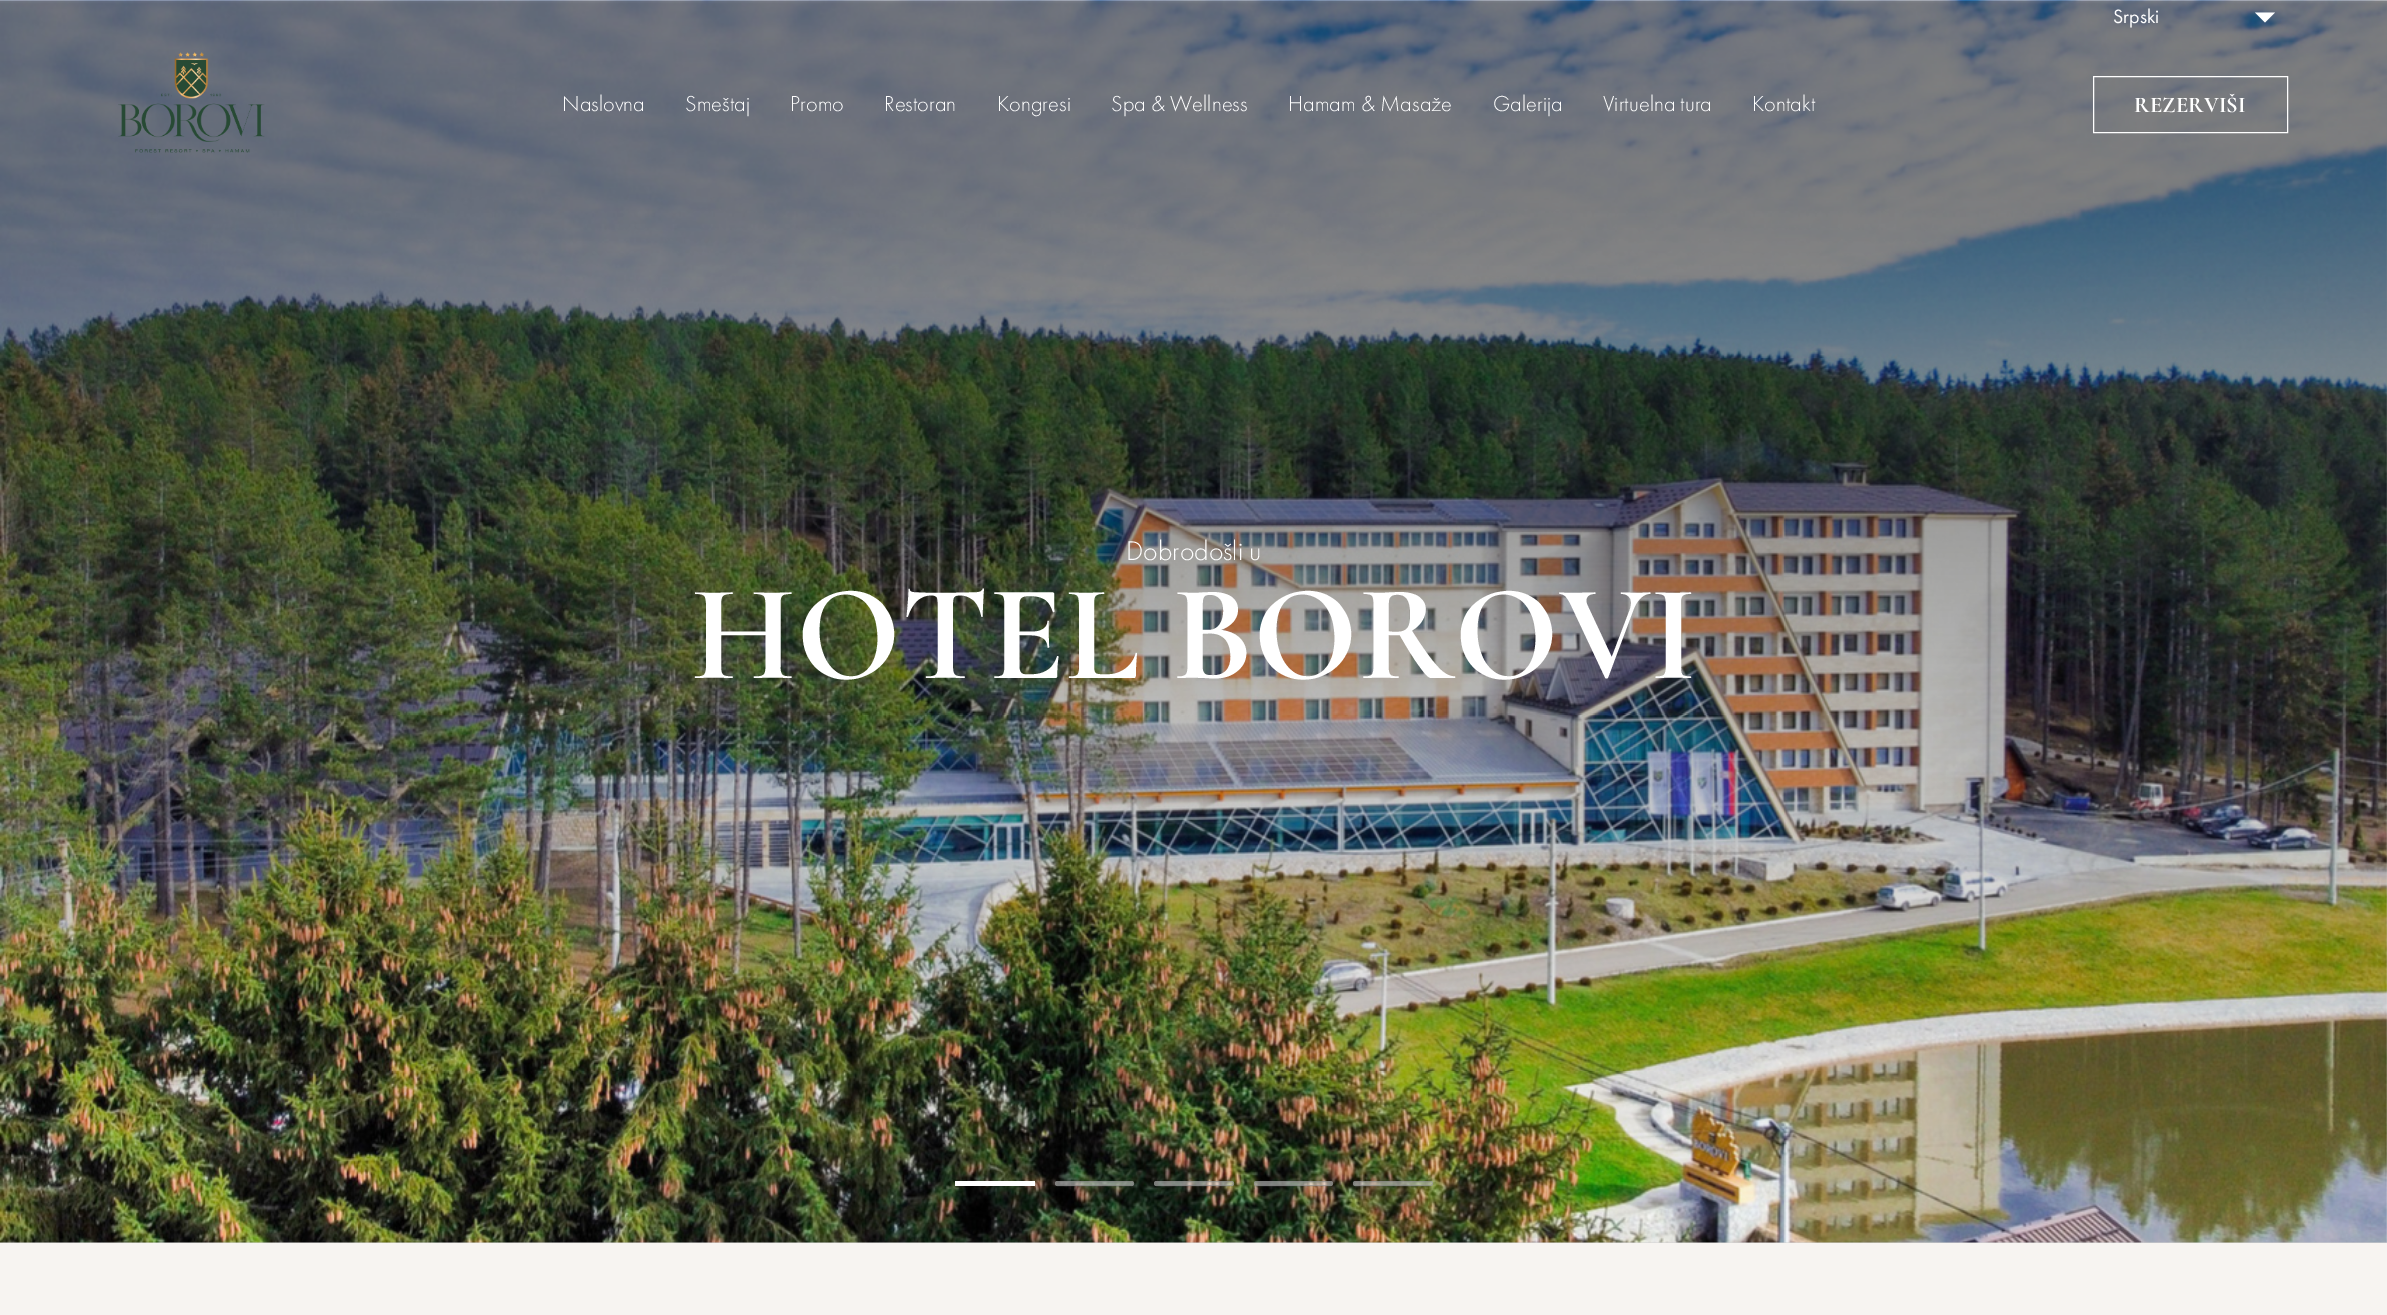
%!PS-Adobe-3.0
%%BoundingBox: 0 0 2387 1315
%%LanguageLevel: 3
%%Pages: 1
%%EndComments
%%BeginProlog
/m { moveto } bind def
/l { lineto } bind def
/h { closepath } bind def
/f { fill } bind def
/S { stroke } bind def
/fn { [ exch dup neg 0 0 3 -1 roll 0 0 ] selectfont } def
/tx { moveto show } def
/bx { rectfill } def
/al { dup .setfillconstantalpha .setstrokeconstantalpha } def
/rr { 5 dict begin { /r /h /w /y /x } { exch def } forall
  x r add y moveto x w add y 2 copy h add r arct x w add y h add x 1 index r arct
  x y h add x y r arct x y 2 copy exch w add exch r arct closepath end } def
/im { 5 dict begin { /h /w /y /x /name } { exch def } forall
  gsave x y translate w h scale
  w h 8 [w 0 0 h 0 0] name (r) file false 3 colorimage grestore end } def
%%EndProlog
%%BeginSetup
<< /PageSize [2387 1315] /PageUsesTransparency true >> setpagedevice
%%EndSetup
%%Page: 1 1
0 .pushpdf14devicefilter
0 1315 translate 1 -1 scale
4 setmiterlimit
1 setgray
0 0 2387 1315 bx
(image1.raw) 0 0 2387 1243 im
(image2.raw) 0 0 2387 1243 im
/FuturaPT-Regular 20 fn
(Srpski) 2113 23 tx
2255 12.5 m 2275 12.5 l 2265 22.5 l h f
(image0.raw) 118 52 147 101 im
/FuturaPT-Light 22.5 fn
(Naslovna) 562 111 tx
(Smeštaj) 685 111 tx
(Promo) 790 111 tx
(Restoran) 884 111 tx
(Kongresi) 997 111 tx
(Spa & Wellness) 1111 111 tx
(Hamam & Masaže) 1288 111 tx
(Galerija) 1493 111 tx
(Virtuelna tura) 1603 111 tx
(Kontakt) 1752 111 tx
2093.5 76.5 194 56 rectstroke
/Cormorant-Bold 22.5 fn
(REZERVIŠI) 2134 112 tx
/FuturaPT-Light 28 fn
(Dobrodošli u) 1126 560 tx
/Cormorant-Bold 137.25 fn
(HOTEL BOROVI) 691 678 tx
955 1181 80 5 bx
0.5 al
0.937 setgray
1055 1181 79 5 2.5 rr f
0.463 setgray
1055.5 1181.5 78 4 2 rr S
0.937 setgray
1154 1181 80 5 2.5 rr f
0.463 setgray
1154.5 1181.5 79 4 2 rr S
0.937 setgray
1254 1181 79 5 2.5 rr f
0.463 setgray
1254.5 1181.5 78 4 2 rr S
0.937 setgray
1353 1181 80 5 2.5 rr f
0.463 setgray
1353.5 1181.5 79 4 2 rr S
1 al
0.969 0.957 0.945 setrgbcolor
0 1243 2387 72 bx
.poppdf14devicefilter showpage
%%EOF
